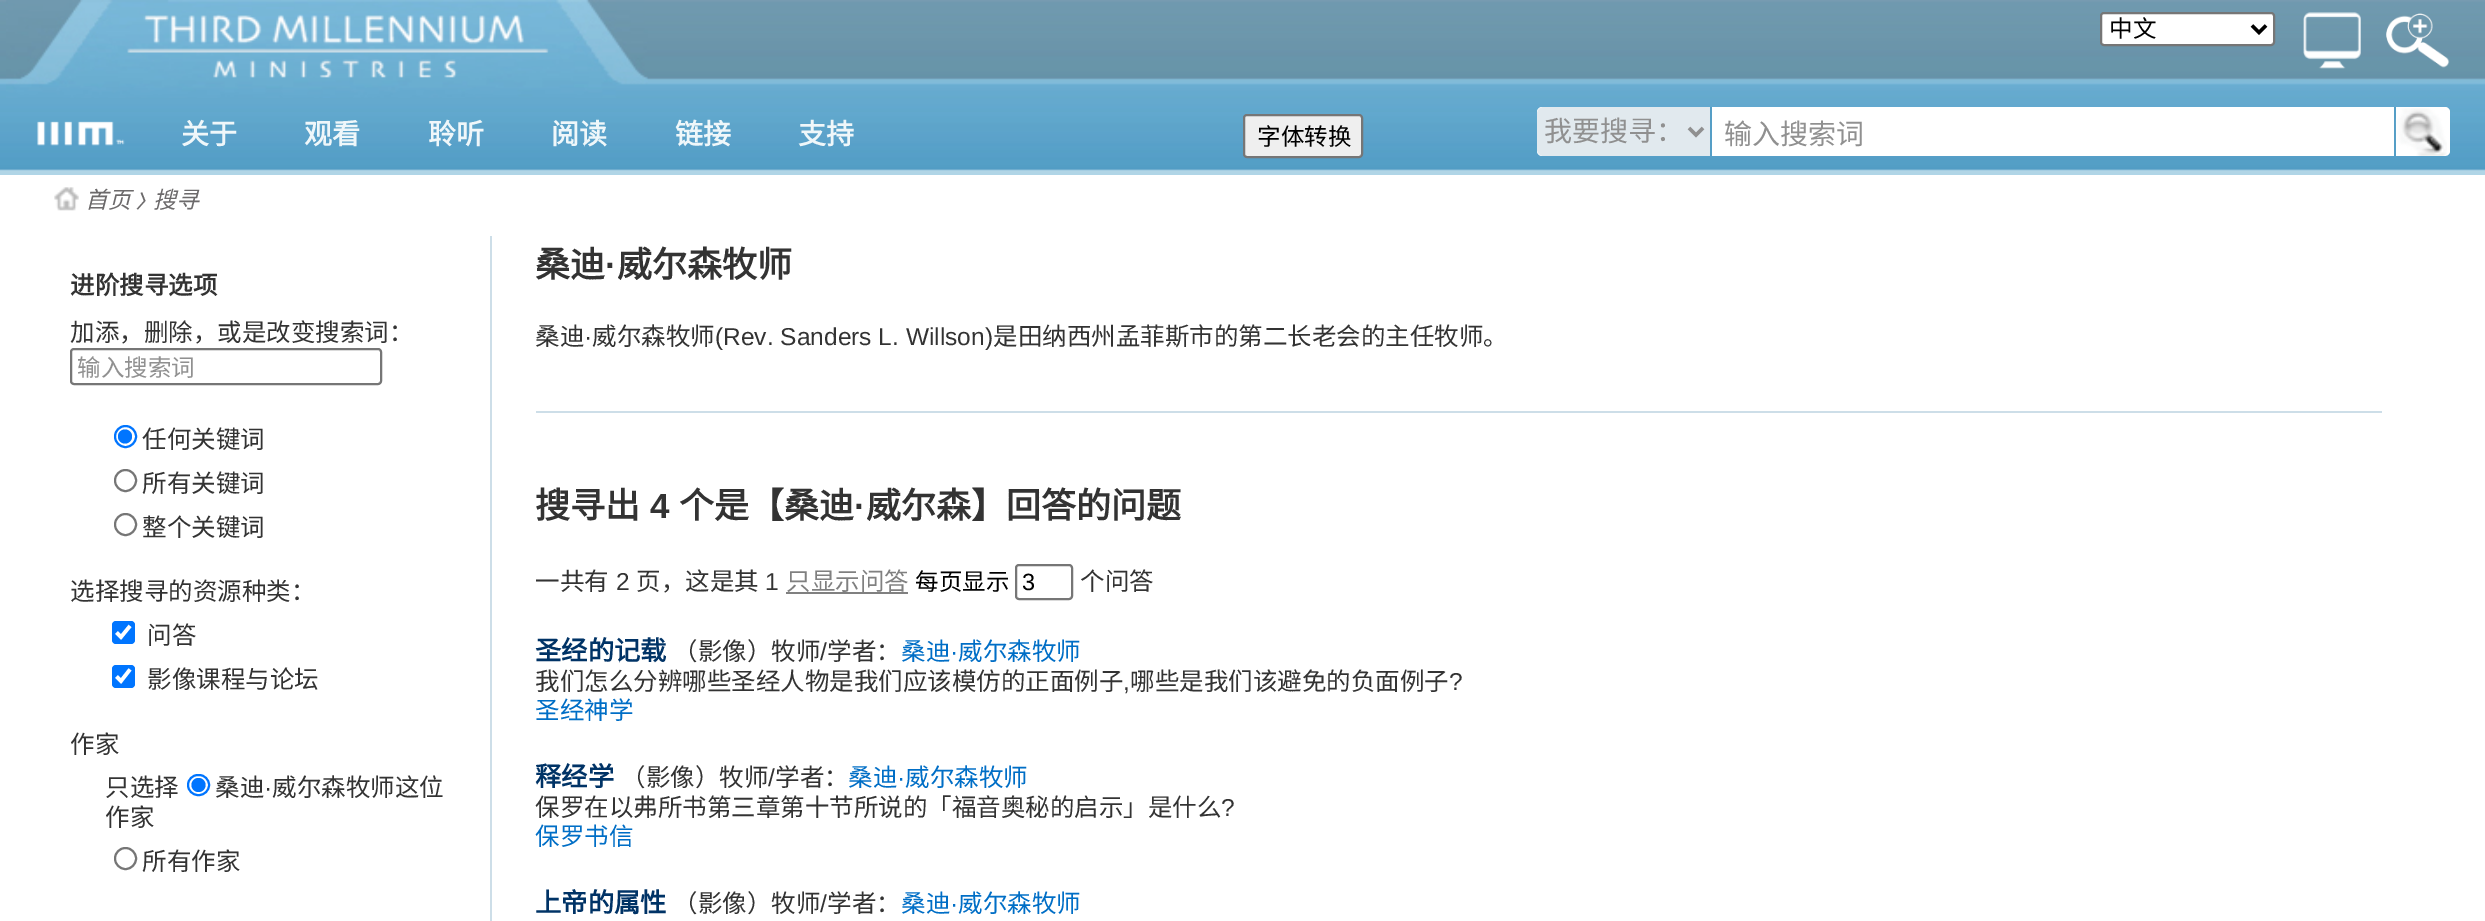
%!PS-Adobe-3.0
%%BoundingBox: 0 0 2485 921
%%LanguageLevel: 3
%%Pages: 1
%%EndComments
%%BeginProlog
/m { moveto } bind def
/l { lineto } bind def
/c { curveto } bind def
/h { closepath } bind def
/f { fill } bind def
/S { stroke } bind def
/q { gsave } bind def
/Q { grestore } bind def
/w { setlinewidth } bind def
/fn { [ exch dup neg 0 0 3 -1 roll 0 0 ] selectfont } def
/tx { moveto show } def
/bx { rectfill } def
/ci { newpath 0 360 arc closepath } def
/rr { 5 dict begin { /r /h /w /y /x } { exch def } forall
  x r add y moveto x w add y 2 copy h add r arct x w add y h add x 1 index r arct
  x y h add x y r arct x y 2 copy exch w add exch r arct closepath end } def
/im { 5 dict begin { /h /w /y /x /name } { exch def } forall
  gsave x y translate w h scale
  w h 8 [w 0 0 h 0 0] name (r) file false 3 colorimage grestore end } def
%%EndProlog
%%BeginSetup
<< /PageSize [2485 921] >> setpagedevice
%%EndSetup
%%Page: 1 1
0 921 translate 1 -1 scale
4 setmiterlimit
1 setgray
0 0 2485 921 bx
(image0.raw) 0 0 2485 175 im
(image1.raw) 6 0 642 98 im
(image2.raw) 127 14 422 64 im
(image3.raw) 37 121 88 25 im
2101 13 173 32 3 rr q f Q
0.463 setgray
2 w
S
0 setgray
3.5 w
2252 25.5 m 2259 32.5 l 2266 25.5 l S
/NotoSansCJKSC-Regular 23.5 fn
(中文) 2109 37 tx
(image4.raw) 2303 12 58 57 im
(image5.raw) 2386 13 64 55 im
0.937 setgray
1244 115 118 42 3 rr q f Q
0.463 setgray
2 w
S
0 setgray
(字体转换) 1257 145 tx
/NotoSansCJKSC-Bold 28 fn
0.937 0.969 0.98 setrgbcolor
(关于) 181 144 tx
(观看) 304 144 tx
(聆听) 428 144 tx
(阅读) 551 144 tx
(链接) 675 144 tx
(支持) 798 144 tx
1 setgray
1537 107 913 49 5 rr f
0.882 0.914 0.933 setrgbcolor
1544 107 m 1712 107 l 1712 156 l 1544 156 l 1540 156 1537 153 1537 149 c 1537 114 l 1537 110 1540 107 1544 107 c h f
0.333 0.62 0.776 setrgbcolor
1710 107 2 49 bx
0.565 setgray
3.5 w
1689 128 m 1696 135 l 1703 128 l S
/NotoSansCJKSC-Regular 28 fn
(我要搜寻：) 1544 141 tx
(输入搜索词) 1724 144 tx
0.333 0.62 0.776 setrgbcolor
2394 107 2 49 bx
1 setgray
2396 107 m 2443 107 l 2447 107 2450 110 2450 114 c 2450 149 l 2450 153 2447 156 2443 156 c 2396 156 l h f
(image6.raw) 2395 108 52 48 im
(image7.raw) 54 187 25 24 im
/NotoSansCJKSC-Italic 23 fn
0.424 0.416 0.42 setrgbcolor
(首页) 85 208 tx
/NotoSansCJKSC-BoldItalic 18 fn
(〉) 136 208 tx
/NotoSansCJKSC-Italic 23 fn
(搜寻) 153 208 tx
/NotoSansCJKSC-Bold 24.5 fn
0.2 setgray
(进阶搜寻选项) 70 294 tx
/NotoSansCJKSC-Regular 24.5 fn
(加添，删除，或是改变搜索词：) 70 341 tx
0.463 setgray
2 w
71 349 310 35 3 rr S
/NotoSansCJKSC-Regular 23.5 fn
0.565 setgray
(输入搜索词) 77 376 tx
0 0.459 1 setrgbcolor
125.5 436.5 10.5 ci S
125 436.5 7 ci f
/NotoSansCJKSC-Regular 24.5 fn
0.2 setgray
(任何关键词) 142 448 tx
0.463 setgray
125.5 480.5 10.5 ci S
0.2 setgray
(所有关键词) 142 492 tx
0.463 setgray
125.5 524.5 10.5 ci S
0.2 setgray
(整个关键词) 142 536 tx
(选择搜寻的资源种类：) 70 600 tx
0 0.459 1 setrgbcolor
112 621 23 23 4 rr f
1 setgray
3.6 w
116.5 632.5 m 121 637 l 130 626 l S
0.2 setgray
(问答) 147 644 tx
0 0.459 1 setrgbcolor
112 665 23 23 4 rr f
1 setgray
116.5 676.5 m 121 681 l 130 669.5 l S
0.2 setgray
(影像课程与论坛) 147 688 tx
(作家) 70 753 tx
(只选择) 105 796 tx
0 0.459 1 setrgbcolor
2 w
188 775 21 20 10 rr S
198.5 785 7 ci f
0.2 setgray
(桑迪) 215 796 tx
/LiberationSans-Regular 24.5 fn
(·) 264 796 tx
/NotoSansCJKSC-Regular 24.5 fn
(威尔森牧师这位) 272 796 tx
(作家) 105 826 tx
0.463 setgray
125.5 858.5 10.5 ci S
0.2 setgray
(所有作家) 142 870 tx
0.804 0.871 0.91 setrgbcolor
490 236 2 685 bx
536 411 1846 2 bx
/NotoSansCJKSC-Bold 35 fn
0.2 setgray
(桑迪) 535 277 tx
/LiberationSans-Bold 35 fn
(·) 605 277 tx
/NotoSansCJKSC-Bold 35 fn
(威尔森牧师) 617 277 tx
/NotoSansCJKSC-Regular 24.5 fn
(桑迪) 535 345 tx
/LiberationSans-Regular 24.5 fn
(·) 584 345 tx
/NotoSansCJKSC-Regular 24.5 fn
(威尔森牧师) 592 345 tx
/LiberationSans-Regular 24.5 fn
(\(Rev. Sanders L. Willson\)) 715 345 tx
/NotoSansCJKSC-Regular 24.5 fn
(是田纳西州孟菲斯市的第二长老会的主任牧师。) 993 345 tx
/NotoSansCJKSC-Bold 35 fn
(搜寻出) 535 518 tx
/LiberationSans-Bold 35 fn
(4) 650 518 tx
/NotoSansCJKSC-Bold 35 fn
(个是【桑迪) 679 518 tx
/LiberationSans-Bold 35 fn
(·) 854 518 tx
/NotoSansCJKSC-Bold 35 fn
(威尔森】回答的问题) 866 518 tx
/NotoSansCJKSC-Regular 24.5 fn
(一共有) 535 590 tx
/LiberationSans-Regular 24.5 fn
(2) 616 590 tx
/NotoSansCJKSC-Regular 24.5 fn
(页，这是其) 636 590 tx
/LiberationSans-Regular 24.5 fn
(1) 765 590 tx
/NotoSansCJKSC-Regular 24.5 fn
0.502 setgray
(只显示问答) 786 590 tx
786 592 122 2 bx
/NotoSansCJKSC-Regular 23.5 fn
0 setgray
(每页显示) 915 590 tx
0.463 setgray
1016 565 56 34 3 rr S
/LiberationSans-Regular 23.5 fn
0 setgray
(3) 1022 590 tx
/NotoSansCJKSC-Regular 24.5 fn
0.2 setgray
(个问答) 1080 590 tx
/NotoSansCJKSC-Bold 26.25 fn
0 0.2 0.4 setrgbcolor
(圣经的记载) 535 660 tx
/NotoSansCJKSC-Regular 24.5 fn
0.2 setgray
(（影像）牧师) 673 660 tx
/LiberationSans-Regular 24.5 fn
(/) 820 660 tx
/NotoSansCJKSC-Regular 24.5 fn
(学者：) 827 660 tx
0 0.431 0.776 setrgbcolor
(桑迪) 901 660 tx
/LiberationSans-Regular 24.5 fn
(·) 950 660 tx
/NotoSansCJKSC-Regular 24.5 fn
(威尔森牧师) 958 660 tx
0.2 setgray
(我们怎么分辨哪些圣经人物是我们应该模仿的正面例子) 535 690 tx
/LiberationSans-Regular 24.5 fn
(,) 1123 690 tx
/NotoSansCJKSC-Regular 24.5 fn
(哪些是我们该避免的负面例子) 1130 690 tx
/LiberationSans-Regular 24.5 fn
(?) 1449 690 tx
/NotoSansCJKSC-Regular 24.5 fn
0 0.431 0.776 setrgbcolor
(圣经神学) 535 719 tx
/NotoSansCJKSC-Bold 26.25 fn
0 0.2 0.4 setrgbcolor
(释经学) 535 786 tx
/NotoSansCJKSC-Regular 24.5 fn
0.2 setgray
(（影像）牧师) 621 786 tx
/LiberationSans-Regular 24.5 fn
(/) 768 786 tx
/NotoSansCJKSC-Regular 24.5 fn
(学者：) 775 786 tx
0 0.431 0.776 setrgbcolor
(桑迪) 848 786 tx
/LiberationSans-Regular 24.5 fn
(·) 897 786 tx
/NotoSansCJKSC-Regular 24.5 fn
(威尔森牧师) 905 786 tx
0.2 setgray
(保罗在以弗所书第三章第十节所说的「福音奥秘的启示」是什么) 535 816 tx
/LiberationSans-Regular 24.5 fn
(?) 1221 816 tx
/NotoSansCJKSC-Regular 24.5 fn
0 0.431 0.776 setrgbcolor
(保罗书信) 535 845 tx
/NotoSansCJKSC-Bold 26.25 fn
0 0.2 0.4 setrgbcolor
(上帝的属性) 535 912 tx
/NotoSansCJKSC-Regular 24.5 fn
0.2 setgray
(（影像）牧师) 673 912 tx
/LiberationSans-Regular 24.5 fn
(/) 820 912 tx
/NotoSansCJKSC-Regular 24.5 fn
(学者：) 827 912 tx
0 0.431 0.776 setrgbcolor
(桑迪) 901 912 tx
/LiberationSans-Regular 24.5 fn
(·) 950 912 tx
/NotoSansCJKSC-Regular 24.5 fn
(威尔森牧师) 958 912 tx
showpage
%%EOF
